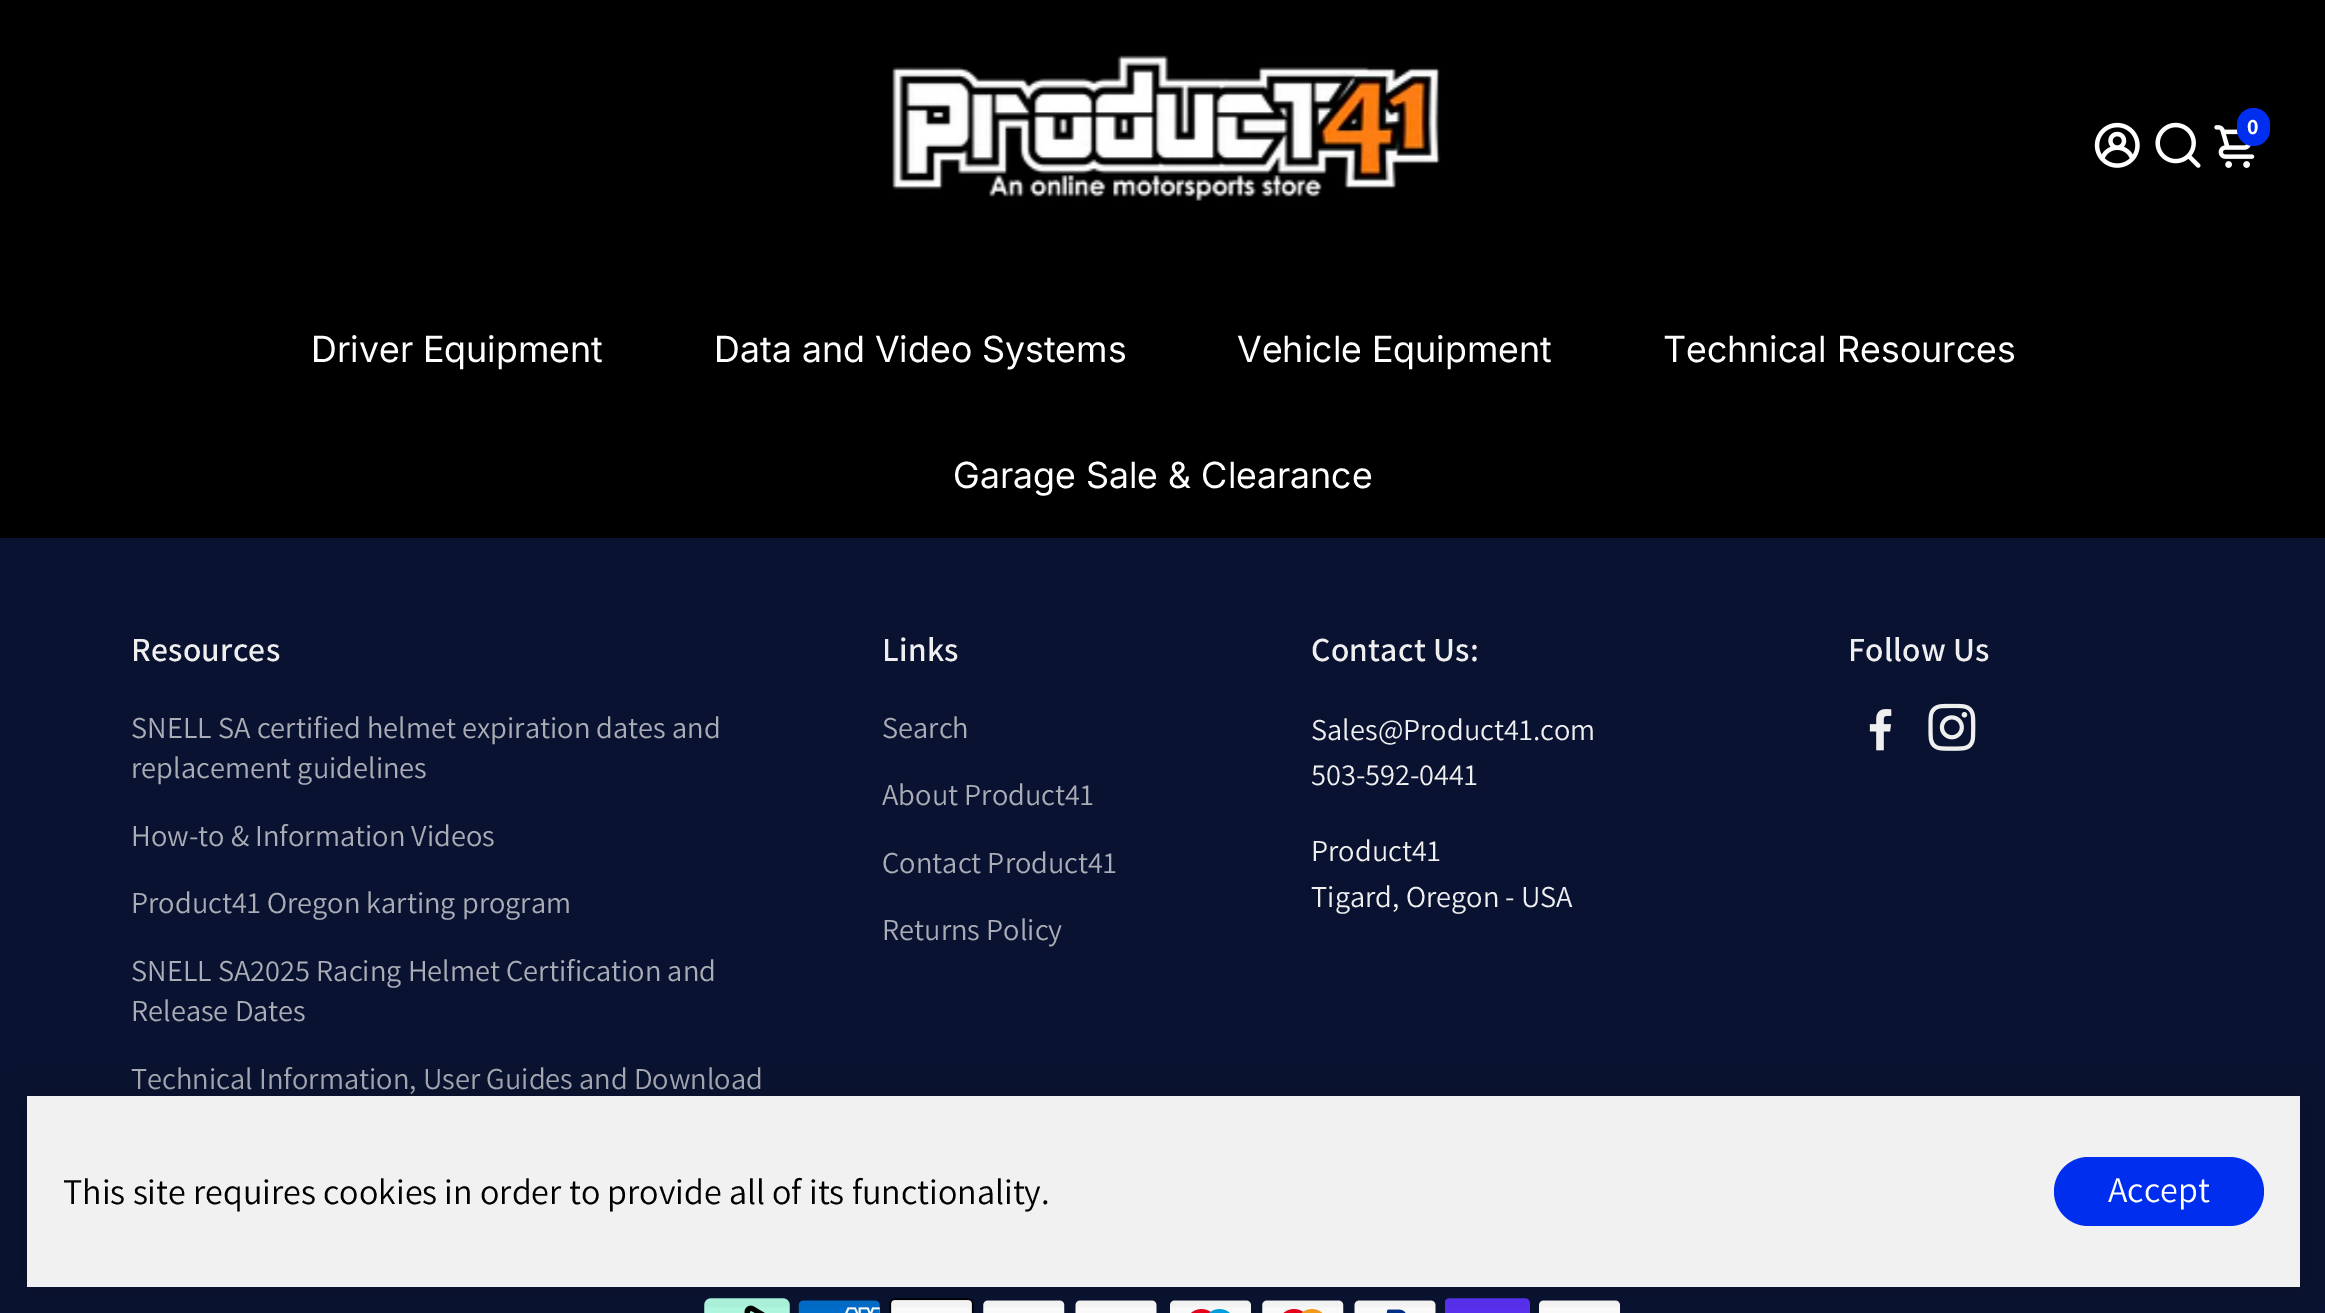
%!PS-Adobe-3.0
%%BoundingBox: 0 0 2325 1313
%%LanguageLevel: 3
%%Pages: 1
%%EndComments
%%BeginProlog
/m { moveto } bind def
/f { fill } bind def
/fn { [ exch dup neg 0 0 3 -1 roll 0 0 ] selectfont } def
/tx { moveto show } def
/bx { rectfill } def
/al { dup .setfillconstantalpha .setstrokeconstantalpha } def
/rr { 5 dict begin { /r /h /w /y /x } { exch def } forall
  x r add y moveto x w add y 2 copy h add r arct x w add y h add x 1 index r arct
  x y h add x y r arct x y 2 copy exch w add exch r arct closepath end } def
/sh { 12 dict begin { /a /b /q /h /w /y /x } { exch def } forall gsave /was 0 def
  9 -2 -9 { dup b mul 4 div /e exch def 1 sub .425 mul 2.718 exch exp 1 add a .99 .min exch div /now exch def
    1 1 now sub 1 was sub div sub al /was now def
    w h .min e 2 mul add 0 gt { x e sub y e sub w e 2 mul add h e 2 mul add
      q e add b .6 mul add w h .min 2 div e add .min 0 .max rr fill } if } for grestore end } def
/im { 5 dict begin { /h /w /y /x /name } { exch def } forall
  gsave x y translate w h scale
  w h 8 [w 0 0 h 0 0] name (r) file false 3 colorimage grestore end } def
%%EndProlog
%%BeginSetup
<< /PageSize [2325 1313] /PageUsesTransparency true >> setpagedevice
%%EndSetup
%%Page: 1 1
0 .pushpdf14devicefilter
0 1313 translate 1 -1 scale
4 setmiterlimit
0.035 0.071 0.188 setrgbcolor
0 0 2325 1313 bx
0 setgray
0 0 2325 538 bx
(image0.raw) 892 55 549 146 im
(image1.raw) 2094 122 46 46 im
(image2.raw) 2155 122 46 46 im
(image3.raw) 2214 125 41 43 im
0 0.18 0.937 setrgbcolor
2237 108 33 38 16.5 rr f
/Assistant-Bold 22 fn
1 setgray
(0) 2247 134 tx
/Inter-Regular 36 fn
(Driver Equipment) 311 362 tx
(Data and Video Systems) 714 362 tx
(Vehicle Equipment) 1237 362 tx
(Technical Resources) 1663 362 tx
(Garage Sale & Clearance) 953 488 tx
/Assistant-SemiBold 33.75 fn
0.937 setgray
131 661 m 0.25 0 (Resources) ashow
/Assistant-Regular 30.4 fn
0.667 0.678 0.714 setrgbcolor
(SNELL SA certified helmet expiration dates and) 131 738 tx
(replacement guidelines) 131 778 tx
(How-to & Information Videos) 131 846 tx
(Product41 Oregon karting program) 131 913 tx
(SNELL SA2025 Racing Helmet Certification and) 131 981 tx
(Release Dates) 131 1021 tx
(Technical Information, User Guides and Download) 131 1089 tx
/Assistant-SemiBold 33.75 fn
0.937 setgray
882 661 m 0.25 0 (Links) ashow
/Assistant-Regular 30.4 fn
0.667 0.678 0.714 setrgbcolor
(Search) 882 738 tx
(About Product41) 882 805 tx
(Contact Product41) 882 873 tx
(Returns Policy) 882 940 tx
/Assistant-SemiBold 33.75 fn
0.937 setgray
1311 661 m 0.25 0 (Contact Us:) ashow
/Assistant-Regular 30.4 fn
(Sales@Product41.com) 1311 740 tx
(503-592-0441) 1311 785 tx
(Product41) 1311 861 tx
(Tigard, Oregon - USA) 1311 907 tx
/Assistant-SemiBold 33.75 fn
1848 661 m 0.25 0 (Follow Us) ashow
(image4.raw) 1869 709 23 42 im
(image5.raw) 1928 703 48 48 im
(image6.raw) 704 1298 86 15 im
(image7.raw) 798 1300 82 13 im
(image8.raw) 889 1298 85 15 im
(image9.raw) 983 1300 82 13 im
(image10.raw) 1075 1300 82 13 im
(image11.raw) 1170 1300 81 13 im
(image12.raw) 1262 1300 82 13 im
(image13.raw) 1354 1300 82 13 im
(image14.raw) 1445 1298 85 15 im
(image15.raw) 1539 1300 81 13 im
0 setgray
27 1096 2273 191 0 27 0.16 sh
0.945 setgray
27 1096 2273 191 bx
/Assistant-Regular 36 fn
0 setgray
(This site requires cookies in order to provide all of its functionality.) 63 1204 tx
0 0.18 0.937 setrgbcolor
2054 1157 210 69 34.5 rr f
1 setgray
(Accept) 2108 1202 tx
.poppdf14devicefilter showpage
%%EOF
